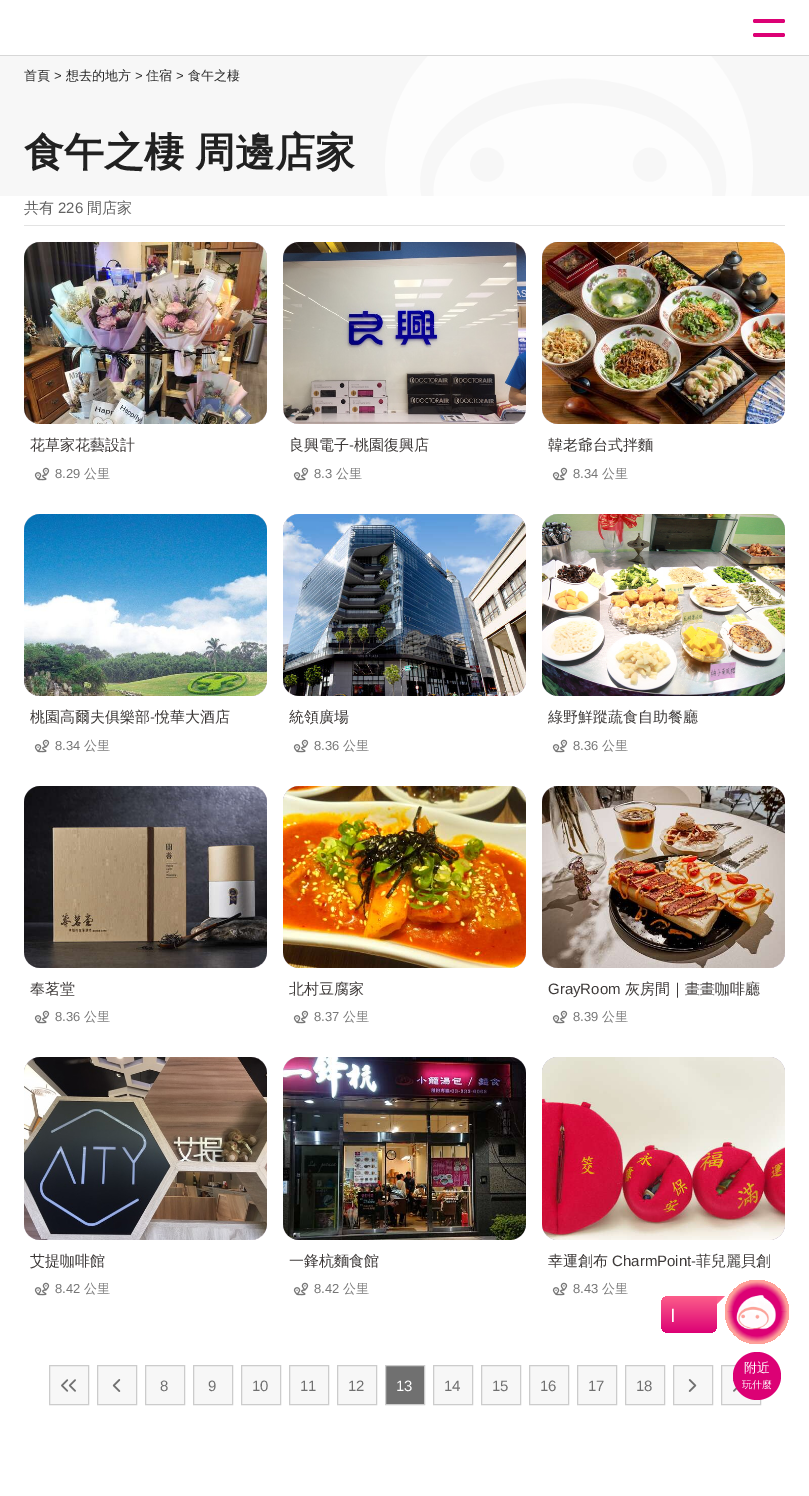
%!PS-Adobe-3.0
%%BoundingBox: 0 0 809 1496
%%LanguageLevel: 3
%%Pages: 1
%%EndComments
%%BeginProlog
/m { moveto } bind def
/l { lineto } bind def
/c { curveto } bind def
/h { closepath } bind def
/f { fill } bind def
/S { stroke } bind def
/q { gsave } bind def
/Q { grestore } bind def
/fn { [ exch dup neg 0 0 3 -1 roll 0 0 ] selectfont } def
/tx { moveto show } def
/bx { rectfill } def
/ci { newpath 0 360 arc closepath } def
/rr { 5 dict begin { /r /h /w /y /x } { exch def } forall
  x r add y moveto x w add y 2 copy h add r arct x w add y h add x 1 index r arct
  x y h add x y r arct x y 2 copy exch w add exch r arct closepath end } def
/im { 5 dict begin { /h /w /y /x /name } { exch def } forall
  gsave x y translate w h scale
  w h 8 [w 0 0 h 0 0] name (r) file false 3 colorimage grestore end } def
%%EndProlog
%%BeginSetup
<< /PageSize [809 1496] >> setpagedevice
%%EndSetup
%%Page: 1 1
0 1496 translate 1 -1 scale
4 setmiterlimit
1 setgray
0 0 809 1496 bx
0.863 0.004 0.459 setrgbcolor
753 19 32 4 2 rr f
753 33 32 4 2 rr f
0.843 setgray
0 55 809 1 bx
0.969 setgray
0 56 809 140 bx
/WenQuanYiZenHei-Medium 13 fn
0.165 setgray
(首頁) 24 80 tx
/LiberationSans-Regular 13 fn
(>) 54 80 tx
/WenQuanYiZenHei-Medium 13 fn
(想去的地方) 66 80 tx
/LiberationSans-Regular 13 fn
(>) 135 80 tx
/WenQuanYiZenHei-Medium 13 fn
(住宿) 146 80 tx
/LiberationSans-Regular 13 fn
(>) 176 80 tx
/WenQuanYiZenHei-Medium 13 fn
(食午之棲) 188 80 tx
(image0.raw) 385 56 368 140 im
/WenQuanYiZenHei-Bold 40 fn
0.129 setgray
24 166 m -1 0 32 (食午之棲 周邊店家) widthshow
0.89 setgray
24 225 761 1 bx
/WenQuanYiZenHei-Medium 15 fn
0.384 setgray
(共有) 24 213 tx
/LiberationSans-Regular 15 fn
(226) 58 213 tx
/WenQuanYiZenHei-Medium 15 fn
(間店家) 87 213 tx
0.902 setgray
24 242 243 182 16 rr f
(image1.raw) 24 242 243 182 im
0.243 0.227 0.224 setrgbcolor
(花草家花藝設計) 30 450 tx
(image2.raw) 34 467 16 14 im
/LiberationSans-Regular 13 fn
0.463 setgray
(8.29) 55 478 tx
/WenQuanYiZenHei-Medium 13 fn
(公里) 84 478 tx
0.902 setgray
283 242 243 182 16 rr f
(image3.raw) 283 242 243 182 im
/WenQuanYiZenHei-Medium 15 fn
0.243 0.227 0.224 setrgbcolor
(良興電子) 289 450 tx
/LiberationSans-Regular 15 fn
(-) 349 450 tx
/WenQuanYiZenHei-Medium 15 fn
(桃園復興店) 354 450 tx
(image2.raw) 293 467 16 14 im
/LiberationSans-Regular 13 fn
0.463 setgray
(8.3) 314 478 tx
/WenQuanYiZenHei-Medium 13 fn
(公里) 336 478 tx
0.902 setgray
542 242 243 182 16 rr f
(image4.raw) 542 242 243 182 im
/WenQuanYiZenHei-Medium 15 fn
0.243 0.227 0.224 setrgbcolor
(韓老爺台式拌麵) 548 450 tx
(image2.raw) 552 467 16 14 im
/LiberationSans-Regular 13 fn
0.463 setgray
(8.34) 573 478 tx
/WenQuanYiZenHei-Medium 13 fn
(公里) 602 478 tx
0.902 setgray
24 514 243 182 16 rr f
(image5.raw) 24 514 243 182 im
/WenQuanYiZenHei-Medium 15 fn
0.243 0.227 0.224 setrgbcolor
(桃園高爾夫俱樂部) 30 722 tx
/LiberationSans-Regular 15 fn
(-) 150 722 tx
/WenQuanYiZenHei-Medium 15 fn
(悅華大酒店) 155 722 tx
(image2.raw) 34 739 16 14 im
/LiberationSans-Regular 13 fn
0.463 setgray
(8.34) 55 750 tx
/WenQuanYiZenHei-Medium 13 fn
(公里) 84 750 tx
0.902 setgray
283 514 243 182 16 rr f
(image6.raw) 283 514 243 182 im
/WenQuanYiZenHei-Medium 15 fn
0.243 0.227 0.224 setrgbcolor
(統領廣場) 289 722 tx
(image2.raw) 293 739 16 14 im
/LiberationSans-Regular 13 fn
0.463 setgray
(8.36) 314 750 tx
/WenQuanYiZenHei-Medium 13 fn
(公里) 343 750 tx
0.902 setgray
542 514 243 182 16 rr f
(image7.raw) 542 514 243 182 im
/WenQuanYiZenHei-Medium 15 fn
0.243 0.227 0.224 setrgbcolor
(綠野鮮蹤蔬食自助餐廳) 548 722 tx
(image2.raw) 552 739 16 14 im
/LiberationSans-Regular 13 fn
0.463 setgray
(8.36) 573 750 tx
/WenQuanYiZenHei-Medium 13 fn
(公里) 602 750 tx
0.902 setgray
24 786 243 182 16 rr f
(image8.raw) 24 786 243 182 im
/WenQuanYiZenHei-Medium 15 fn
0.243 0.227 0.224 setrgbcolor
(奉茗堂) 30 994 tx
(image2.raw) 34 1010 16 14 im
/LiberationSans-Regular 13 fn
0.463 setgray
(8.36) 55 1021 tx
/WenQuanYiZenHei-Medium 13 fn
(公里) 84 1021 tx
0.902 setgray
283 786 243 182 16 rr f
(image9.raw) 283 786 243 182 im
/WenQuanYiZenHei-Medium 15 fn
0.243 0.227 0.224 setrgbcolor
(北村豆腐家) 289 994 tx
(image2.raw) 293 1010 16 14 im
/LiberationSans-Regular 13 fn
0.463 setgray
(8.37) 314 1021 tx
/WenQuanYiZenHei-Medium 13 fn
(公里) 343 1021 tx
0.902 setgray
542 786 243 182 16 rr f
(image10.raw) 542 786 243 182 im
/LiberationSans-Regular 15 fn
0.243 0.227 0.224 setrgbcolor
(GrayRoom) 548 994 tx
/WenQuanYiZenHei-Medium 15 fn
(灰房間｜畫畫咖啡廳) 625 994 tx
(image2.raw) 552 1010 16 14 im
/LiberationSans-Regular 13 fn
0.463 setgray
(8.39) 573 1021 tx
/WenQuanYiZenHei-Medium 13 fn
(公里) 602 1021 tx
0.902 setgray
24 1057 243 183 16 rr f
(image11.raw) 24 1057 243 183 im
/WenQuanYiZenHei-Medium 15 fn
0.243 0.227 0.224 setrgbcolor
(艾提咖啡館) 30 1266 tx
(image2.raw) 34 1282 16 14 im
/LiberationSans-Regular 13 fn
0.463 setgray
(8.42) 55 1293 tx
/WenQuanYiZenHei-Medium 13 fn
(公里) 84 1293 tx
0.902 setgray
283 1057 243 183 16 rr f
(image12.raw) 283 1057 243 183 im
/WenQuanYiZenHei-Medium 15 fn
0.243 0.227 0.224 setrgbcolor
(一鋒杭麵食館) 289 1266 tx
(image2.raw) 293 1282 16 14 im
/LiberationSans-Regular 13 fn
0.463 setgray
(8.42) 314 1293 tx
/WenQuanYiZenHei-Medium 13 fn
(公里) 343 1293 tx
0.902 setgray
542 1057 243 183 16 rr f
(image13.raw) 542 1057 243 183 im
/WenQuanYiZenHei-Medium 15 fn
0.243 0.227 0.224 setrgbcolor
(幸運創布) 548 1266 tx
/LiberationSans-Regular 15 fn
(CharmPoint-) 612 1266 tx
/WenQuanYiZenHei-Medium 15 fn
(菲兒麗貝創) 696 1266 tx
(image2.raw) 552 1282 16 14 im
/LiberationSans-Regular 13 fn
0.463 setgray
(8.43) 573 1293 tx
/WenQuanYiZenHei-Medium 13 fn
(公里) 602 1293 tx
0.969 setgray
49.5 1365.5 m 88.5 1365.5 l 88.5 1404.5 l 49.5 1404.5 l h q f Q
0.8 setgray
S
(image14.raw) 61 1379 15 13 im
0.969 setgray
97.5 1365.5 m 136.5 1365.5 l 136.5 1404.5 l 97.5 1404.5 l h q f Q
0.8 setgray
S
(image15.raw) 112 1379 9 13 im
0.969 setgray
145.5 1365.5 m 184.5 1365.5 l 184.5 1404.5 l 145.5 1404.5 l h q f Q
0.8 setgray
S
/LiberationSans-Regular 15 fn
0.439 setgray
(8) 160 1391 tx
0.969 setgray
193.5 1365.5 m 232.5 1365.5 l 232.5 1404.5 l 193.5 1404.5 l h q f Q
0.8 setgray
S
0.439 setgray
(9) 208 1391 tx
0.969 setgray
241.5 1365.5 m 280.5 1365.5 l 280.5 1404.5 l 241.5 1404.5 l h q f Q
0.8 setgray
S
0.439 setgray
(10) 252 1391 tx
0.969 setgray
289.5 1365.5 m 328.5 1365.5 l 328.5 1404.5 l 289.5 1404.5 l h q f Q
0.8 setgray
S
0.439 setgray
(11) 300 1391 tx
0.969 setgray
337.5 1365.5 m 376.5 1365.5 l 376.5 1404.5 l 337.5 1404.5 l h q f Q
0.8 setgray
S
0.439 setgray
(12) 348 1391 tx
385.5 1365.5 m 424.5 1365.5 l 424.5 1404.5 l 385.5 1404.5 l h q f Q
0.8 setgray
S
1 setgray
(13) 396 1391 tx
0.969 setgray
433.5 1365.5 m 472.5 1365.5 l 472.5 1404.5 l 433.5 1404.5 l h q f Q
0.8 setgray
S
0.439 setgray
(14) 444 1391 tx
0.969 setgray
481.5 1365.5 m 520.5 1365.5 l 520.5 1404.5 l 481.5 1404.5 l h q f Q
0.8 setgray
S
0.439 setgray
(15) 492 1391 tx
0.969 setgray
529.5 1365.5 m 568.5 1365.5 l 568.5 1404.5 l 529.5 1404.5 l h q f Q
0.8 setgray
S
0.439 setgray
(16) 540 1391 tx
0.969 setgray
577.5 1365.5 m 616.5 1365.5 l 616.5 1404.5 l 577.5 1404.5 l h q f Q
0.8 setgray
S
0.439 setgray
(17) 588 1391 tx
0.969 setgray
625.5 1365.5 m 664.5 1365.5 l 664.5 1404.5 l 625.5 1404.5 l h q f Q
0.8 setgray
S
0.439 setgray
(18) 636 1391 tx
0.969 setgray
673.5 1365.5 m 712.5 1365.5 l 712.5 1404.5 l 673.5 1404.5 l h q f Q
0.8 setgray
S
(image16.raw) 688 1379 9 13 im
0.969 setgray
721.5 1365.5 m 760.5 1365.5 l 760.5 1404.5 l 721.5 1404.5 l h q f Q
0.8 setgray
S
(image17.raw) 733 1379 4 13 im
0.988 0.369 0.541 setrgbcolor
725 1296 m 717 1296 l 717 1304 l h f
q 669 1296 m 717 1296 l 717 1325 l 717 1329.5 713.5 1333 709 1333 c 669 1333 l 664.5 1333 661 1329.5 661 1325 c 661 1304 l 661 1299.5 664.5 1296 669 1296 c h clip newpath
<< /ShadingType 2 /ColorSpace /DeviceRGB /Coords [689 1296 689 1333] /Extend [true true] /Function << /FunctionType 2 /Domain [0 1] /C0 [0.988 0.369 0.541] /C1 [0.863 0.004 0.459] /N 1 >> >> shfill Q
/LiberationSans-Bold 14 fn
1 setgray
(|) 671 1319 tx
q 757 1312 32 ci clip newpath 757 1312 translate 32 32 scale
<< /ShadingType 3 /ColorSpace /DeviceRGB /Coords [0 0 0 0 0 1] /Extend [true true] /Function << /FunctionType 3 /Domain [0 1] /Functions [<< /FunctionType 2 /Domain [0 1] /C0 [0.863 0.004 0.459] /C1 [0.863 0.004 0.459] /N 1 >> << /FunctionType 2 /Domain [0 1] /C0 [0.863 0.004 0.459] /C1 [0.996 0.635 0.604] /N 1 >> << /FunctionType 2 /Domain [0 1] /C0 [0.996 0.635 0.604] /C1 [0.996 0.635 0.604] /N 1 >>] /Bounds [0.75 0.95] /Encode [0 1 0 1 0 1] >> >> shfill Q
(image18.raw) 736 1295 40 35 im
0.863 0.004 0.459 setrgbcolor
757 1376 24 ci f
/WenQuanYiZenHei-Medium 13 fn
1 setgray
(附近) 744 1372 tx
/WenQuanYiZenHei-Medium 10 fn
(玩什麼) 742 1388 tx
showpage
%%EOF
